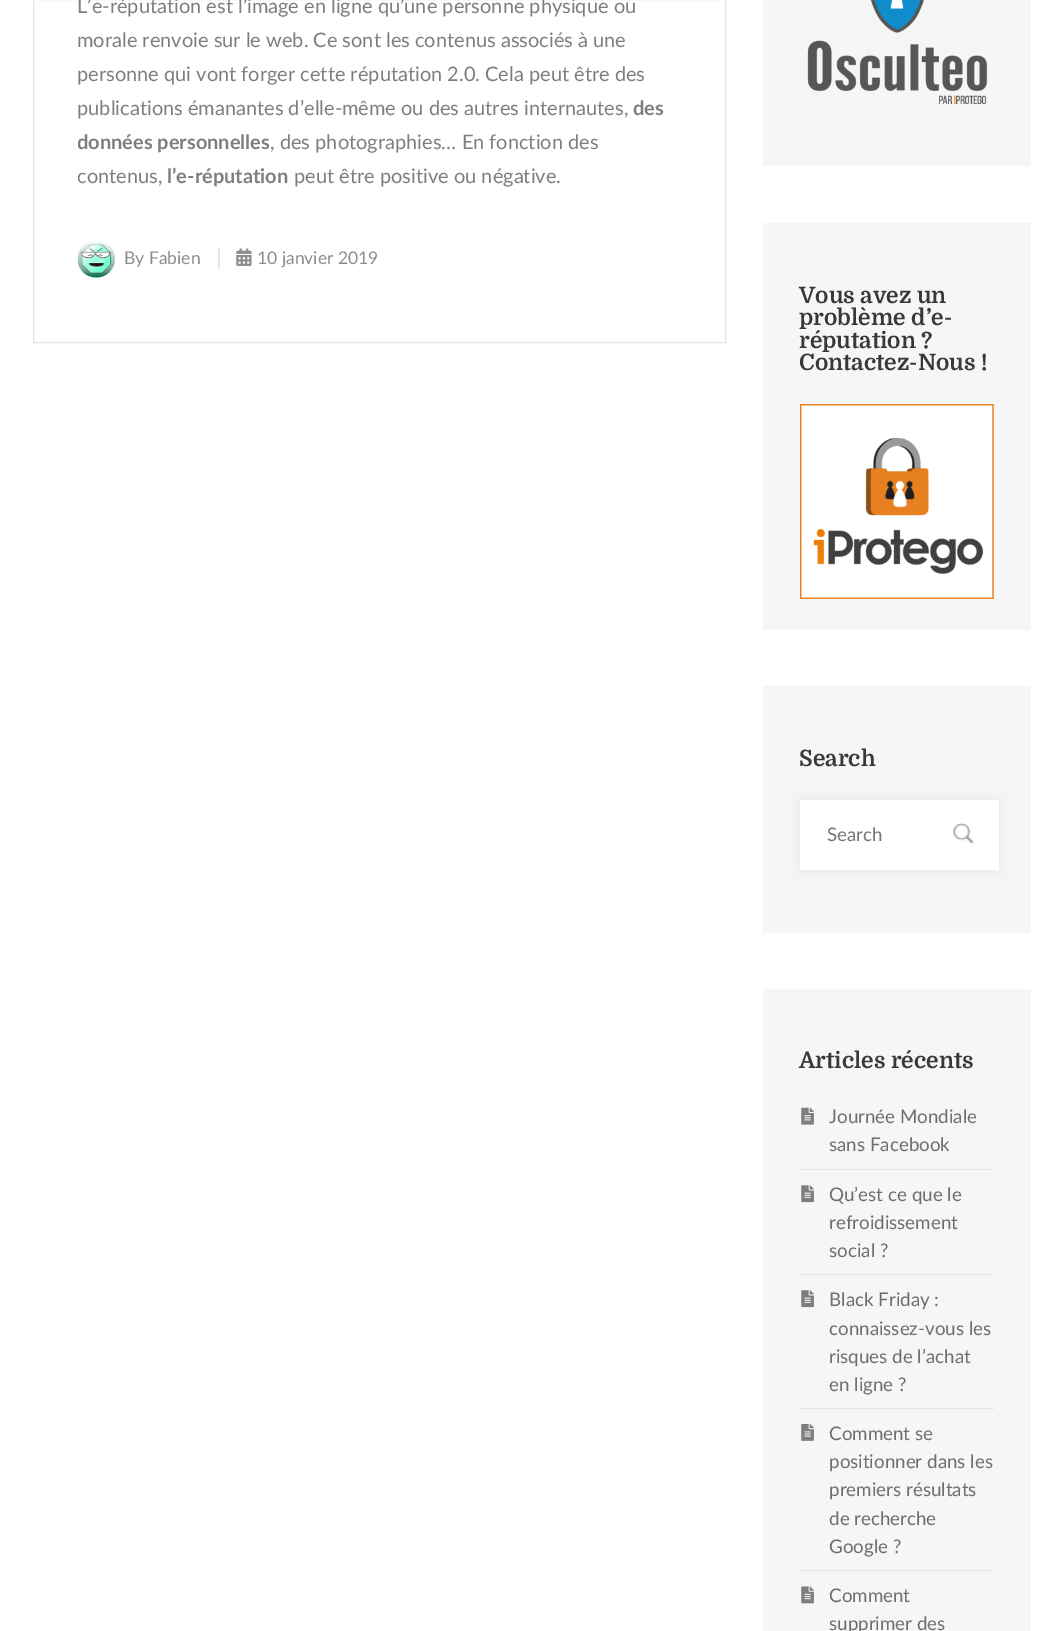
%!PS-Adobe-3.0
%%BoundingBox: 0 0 1063 1631
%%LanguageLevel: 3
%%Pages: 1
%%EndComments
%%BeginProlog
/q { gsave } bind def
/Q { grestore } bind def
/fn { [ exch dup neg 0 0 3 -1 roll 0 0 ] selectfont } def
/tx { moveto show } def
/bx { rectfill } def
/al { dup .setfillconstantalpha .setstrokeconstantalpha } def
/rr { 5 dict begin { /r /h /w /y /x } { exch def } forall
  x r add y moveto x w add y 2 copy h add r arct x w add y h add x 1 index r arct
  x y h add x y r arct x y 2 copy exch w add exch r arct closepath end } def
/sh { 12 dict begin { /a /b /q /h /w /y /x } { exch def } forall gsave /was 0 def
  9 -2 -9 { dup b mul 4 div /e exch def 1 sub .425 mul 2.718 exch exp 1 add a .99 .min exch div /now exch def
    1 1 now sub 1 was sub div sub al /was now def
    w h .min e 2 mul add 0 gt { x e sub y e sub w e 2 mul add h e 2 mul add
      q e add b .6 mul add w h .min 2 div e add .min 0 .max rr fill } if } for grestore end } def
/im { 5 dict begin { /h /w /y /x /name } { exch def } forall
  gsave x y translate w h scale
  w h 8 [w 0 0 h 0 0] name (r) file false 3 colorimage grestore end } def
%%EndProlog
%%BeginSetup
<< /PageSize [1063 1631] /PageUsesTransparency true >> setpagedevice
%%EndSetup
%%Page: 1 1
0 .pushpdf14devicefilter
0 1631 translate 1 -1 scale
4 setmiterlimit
1 setgray
0 0 1063 1631 bx
0.89 0.898 0.925 setrgbcolor
33.5 -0.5 692 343 rectstroke
/Lato-Regular 20 fn
0.498 0.49 0.494 setrgbcolor
(L’e-réputation est l’image en ligne qu’une personne physique ou) 77 13 tx
(morale renvoie sur le web. Ce sont les contenus associés à une) 77 47 tx
(personne qui vont forger cette réputation 2.0. Cela peut être des) 77 81 tx
(publications émanantes d’elle-même ou des autres internautes,) 77 115 tx
/Lato-Bold 20 fn
(des) 633 115 tx
q
78 0 603 226 rectclip
(données personnelles) 77 149 tx
Q
/Lato-Regular 20 fn
(, des photographies… En fonction des) 270 149 tx
q
78 0 603 226 rectclip
(contenus,) 77 183 tx
Q
/Lato-Bold 20 fn
(l’e-réputation) 167 183 tx
/Lato-Regular 20 fn
(peut être positive ou négative.) 294 183 tx
(image0.raw) 77 241 38 37 im
/Lato-Regular 17.5 fn
0.561 0.549 0.541 setrgbcolor
(By Fabien) 124 264 tx
/Lato-Bold 22.5 fn
0.914 0.91 0.91 setrgbcolor
(|) 216 265 tx
(image1.raw) 236 248 16 18 im
/Lato-Regular 17.5 fn
0.561 0.549 0.541 setrgbcolor
(10 janvier 2019) 257 264 tx
0.965 setgray
763 0 268 166 bx
(image2.raw) 807 0 181 105 im
763 223 268 407 bx
/Domine-Bold 22.5 fn
0.224 0.216 0.22 setrgbcolor
(Vous avez un) 799 303 tx
(problème d’e-) 799 325 tx
(réputation ?) 799 348 tx
(Contactez-Nous !) 799 370 tx
(image3.raw) 800 404 194 195 im
0.965 setgray
763 686 268 247 bx
0.224 0.216 0.22 setrgbcolor
(Search) 799 766 tx
0 setgray
800 800 199 70 0 9.5 0.05 sh
1 setgray
800 800 199 70 bx
(image4.raw) 952 822 22 22 im
/Lato-Regular 18.75 fn
0.459 setgray
(Search) 827 841 tx
0.965 setgray
763 989 268 642 bx
/Domine-Bold 22.5 fn
0.224 0.216 0.22 setrgbcolor
(Articles récents) 799 1068 tx
0.898 setgray
800 1169 194 1 bx
(image5.raw) 801 1107 13 18 im
/Lato-Regular 18.75 fn
0.439 0.427 0.42 setrgbcolor
(Journée Mondiale) 829 1123 tx
(sans Facebook) 829 1151 tx
0.898 setgray
800 1274 194 1 bx
(image6.raw) 801 1185 13 18 im
0.439 0.427 0.42 setrgbcolor
(Qu’est ce que le) 829 1201 tx
(refroidissement) 829 1229 tx
(social ?) 829 1257 tx
0.898 setgray
800 1408 194 1 bx
(image6.raw) 801 1290 13 18 im
0.439 0.427 0.42 setrgbcolor
(Black Friday :) 829 1306 tx
(connaissez-vous les) 829 1335 tx
(risques de l’achat) 829 1363 tx
(en ligne ?) 829 1391 tx
0.898 setgray
800 1570 194 1 bx
(image7.raw) 801 1424 13 17 im
0.439 0.427 0.42 setrgbcolor
(Comment se) 829 1440 tx
(positionner dans les) 829 1468 tx
(premiers résultats) 829 1496 tx
(de recherche) 829 1525 tx
(Google ?) 829 1553 tx
(image8.raw) 801 1586 13 18 im
(Comment) 829 1602 tx
(supprimer des) 829 1630 tx
.poppdf14devicefilter showpage
%%EOF
